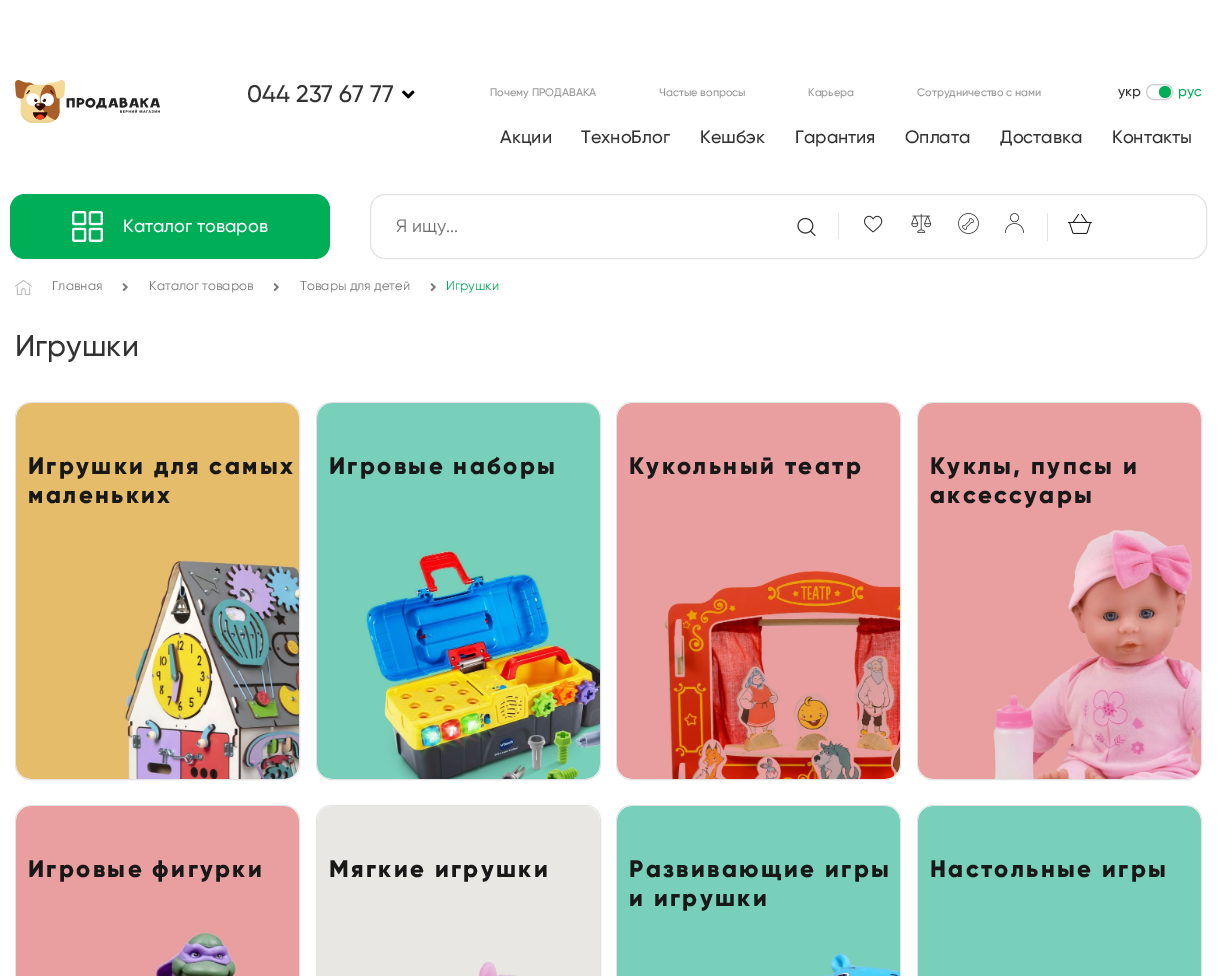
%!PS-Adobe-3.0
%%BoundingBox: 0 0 1217 976
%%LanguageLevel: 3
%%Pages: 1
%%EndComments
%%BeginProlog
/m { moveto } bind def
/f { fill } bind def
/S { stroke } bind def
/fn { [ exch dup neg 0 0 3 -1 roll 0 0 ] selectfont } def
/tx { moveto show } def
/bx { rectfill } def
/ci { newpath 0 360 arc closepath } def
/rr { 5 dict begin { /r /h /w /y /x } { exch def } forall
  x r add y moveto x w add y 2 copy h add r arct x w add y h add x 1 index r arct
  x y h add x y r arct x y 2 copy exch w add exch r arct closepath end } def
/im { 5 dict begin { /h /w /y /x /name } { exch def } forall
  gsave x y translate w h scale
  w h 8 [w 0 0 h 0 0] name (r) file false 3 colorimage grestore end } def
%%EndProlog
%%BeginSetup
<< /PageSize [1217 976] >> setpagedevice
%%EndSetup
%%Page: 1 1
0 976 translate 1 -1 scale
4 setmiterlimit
1 setgray
0 0 1217 976 bx
(image0.raw) 15 80 145 43 im
/Gilroy-Medium 24 fn
0.196 setgray
(044 237 67 77) 247 102 tx
(image1.raw) 402 90 13 9 im
/Gilroy-Medium 11 fn
0.592 setgray
(Почему ПРОДАВАКА) 490 96 tx
(Частые вопросы) 659 96 tx
(Карьера) 808 96 tx
(Сотрудничество с нами) 917 96 tx
/Gilroy-Medium 14 fn
0.196 setgray
(укр) 1118 96 tx
0.8 setgray
1146.5 84.5 26 15 7.5 rr S
0 0.682 0.345 setrgbcolor
1165 92 6 ci f
(рус) 1178 96 tx
/Gilroy-Medium 18 fn
0.196 setgray
(Акции) 500 143 tx
(ТехноБлог) 581 143 tx
(Кешбэк) 700 143 tx
(Гарантия) 795 143 tx
(Оплата) 905 143 tx
(Доставка) 1000 143 tx
(Контакты) 1112 143 tx
0 0.682 0.345 setrgbcolor
10 194 320 65 15 rr f
(image2.raw) 72 211 31 31 im
1 setgray
(Каталог товаров) 123 232 tx
0.89 setgray
370.5 194.5 836 64 14.5 rr S
838 214 1 25 bx
/Gilroy-Regular 18 fn
0.431 setgray
(Я ищу...) 396 232 tx
(image3.raw) 797 217 19 20 im
0.89 setgray
1047 213 1 28 bx
(image4.raw) 864 215 19 18 im
(image5.raw) 911 214 21 19 im
(image6.raw) 958 213 21 21 im
(image7.raw) 1005 213 19 20 im
(image8.raw) 1068 214 24 20 im
(image9.raw) 15 280 17 15 im
/Gilroy-Regular 13 fn
0.475 setgray
(Главная) 52 290 tx
(image10.raw) 122 283 6 9 im
(Каталог товаров) 149 290 tx
(image10.raw) 273 283 6 9 im
(Товары для детей) 300 290 tx
(image10.raw) 430 283 6 9 im
0 0.682 0.345 setrgbcolor
(Игрушки) 446 290 tx
/Gilroy-Medium 30 fn
0.196 setgray
(Игрушки) 15 356 tx
0.89 setgray
15.5 402.5 284 377 14.5 rr S
(image11.raw) 16 403 283 376 im
/Gilroy-ExtraBold 24 fn
0.094 setgray
28 474 m 2.4 0 (Игрушки для самых) ashow
28 503 m 2.4 0 (маленьких) ashow
0.89 setgray
316.5 402.5 284 377 14.5 rr S
(image12.raw) 317 403 283 376 im
0.094 setgray
329 474 m 2.4 0 (Игровые наборы) ashow
0.89 setgray
616.5 402.5 284 377 14.5 rr S
(image13.raw) 617 403 283 376 im
0.094 setgray
629 474 m 2.4 0 (Кукольный театр) ashow
0.89 setgray
917.5 402.5 284 377 14.5 rr S
(image14.raw) 918 403 283 376 im
0.094 setgray
930 474 m 2.4 0 (Куклы, пупсы и) ashow
930 503 m 2.4 0 (аксессуары) ashow
0.89 setgray
15.5 805.5 284 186 14.5 rr S
(image15.raw) 16 806 283 170 im
0.094 setgray
28 877 m 2.4 0 (Игровые фигурки) ashow
0.89 setgray
316.5 805.5 284 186 14.5 rr S
(image16.raw) 317 806 283 170 im
0.094 setgray
329 877 m 2.4 0 (Мягкие игрушки) ashow
0.89 setgray
616.5 805.5 284 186 14.5 rr S
(image17.raw) 617 806 283 170 im
0.094 setgray
629 877 m 2.4 0 (Развивающие игры) ashow
629 906 m 2.4 0 (и игрушки) ashow
0.89 setgray
917.5 805.5 284 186 14.5 rr S
(image18.raw) 918 806 283 170 im
0.094 setgray
930 877 m 2.4 0 (Настольные игры) ashow
showpage
%%EOF
